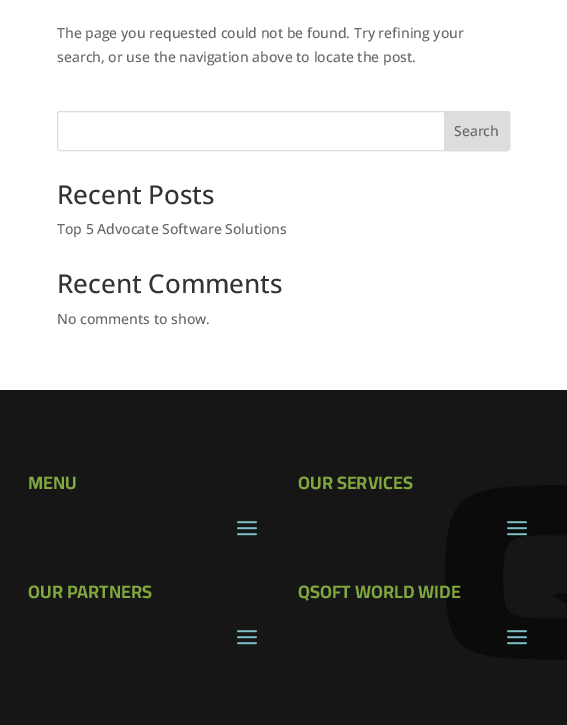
%!PS-Adobe-3.0
%%BoundingBox: 0 0 567 725
%%LanguageLevel: 3
%%Pages: 1
%%EndComments
%%BeginProlog
/m { moveto } bind def
/l { lineto } bind def
/c { curveto } bind def
/h { closepath } bind def
/f { fill } bind def
/S { stroke } bind def
/q { gsave } bind def
/Q { grestore } bind def
/fn { [ exch dup neg 0 0 3 -1 roll 0 0 ] selectfont } def
/tx { moveto show } def
/bx { rectfill } def
/rr { 5 dict begin { /r /h /w /y /x } { exch def } forall
  x r add y moveto x w add y 2 copy h add r arct x w add y h add x 1 index r arct
  x y h add x y r arct x y 2 copy exch w add exch r arct closepath end } def
/im { 5 dict begin { /h /w /y /x /name } { exch def } forall
  gsave x y translate w h scale
  w h 8 [w 0 0 h 0 0] name (r) file false 3 colorimage grestore end } def
%%EndProlog
%%BeginSetup
<< /PageSize [567 725] >> setpagedevice
%%EndSetup
%%Page: 1 1
0 725 translate 1 -1 scale
4 setmiterlimit
1 setgray
0 0 567 725 bx
/OpenSans-Medium 14 fn
0.4 setgray
(The page you requested could not be found. Try refining your) 57 38 tx
(search, or use the navigation above to locate the post.) 57 62 tx
0.867 setgray
57.5 111.5 452 39 2.5 rr S
444.5 111.5 m 507 111.5 l 508.5 111.5 509.5 112.5 509.5 114 c 509.5 148 l 509.5 149.5 508.5 150.5 507 150.5 c 444.5 150.5 l h q f Q
S
0.4 setgray
(Search) 454 136 tx
/OpenSans-Medium 26 fn
0.2 setgray
(Recent Posts) 57 204 tx
/OpenSans-Medium 14 fn
0.4 setgray
(Top 5 Advocate Software Solutions) 57 234 tx
/OpenSans-Medium 26 fn
0.2 setgray
(Recent Comments) 57 293 tx
/OpenSans-Medium 14 fn
0.4 setgray
(No comments to show.) 57 324 tx
0.086 setgray
0 390 567 335 bx
(image0.raw) 445 485 122 175 im
/Cairo-Bold 18 fn
0.506 0.659 0.247 setrgbcolor
(MENU) 28 489 tx
(image1.raw) 237 521 20 15 im
(OUR SERVICES) 298 489 tx
(image2.raw) 507 521 20 15 im
(OUR PARTNERS) 28 598 tx
(image1.raw) 237 630 20 15 im
(QSOFT WORLD WIDE) 298 598 tx
(image3.raw) 507 630 20 15 im
showpage
%%EOF
